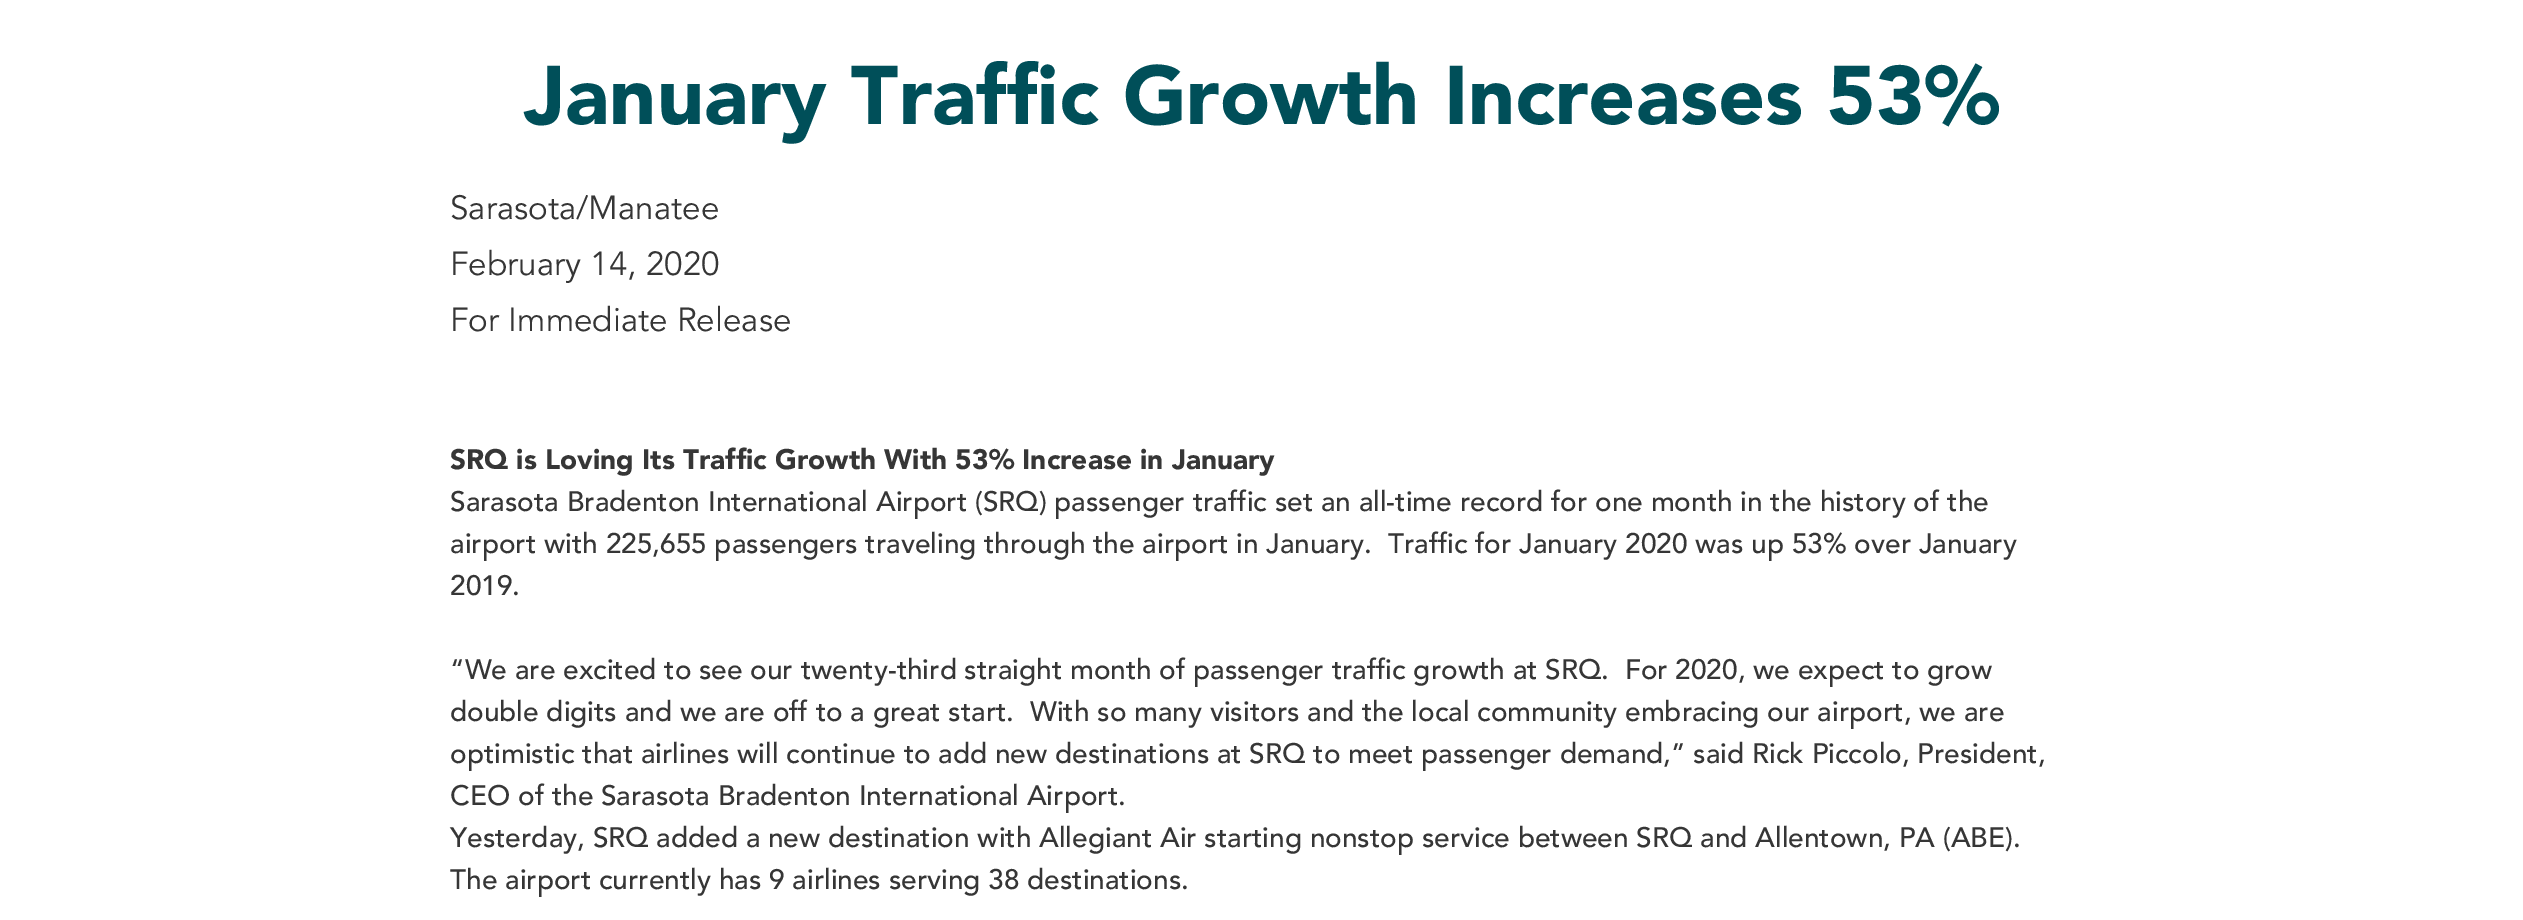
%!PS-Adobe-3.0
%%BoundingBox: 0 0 2523 920
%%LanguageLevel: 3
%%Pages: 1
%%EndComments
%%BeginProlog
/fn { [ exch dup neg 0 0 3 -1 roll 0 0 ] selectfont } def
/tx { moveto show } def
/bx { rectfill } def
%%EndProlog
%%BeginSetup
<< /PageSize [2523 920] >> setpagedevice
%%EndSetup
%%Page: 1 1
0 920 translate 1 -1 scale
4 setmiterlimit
1 setgray
0 0 2523 920 bx
/Avenir-Black 82.25 fn
0 0.31 0.349 setrgbcolor
(January Traffic Growth Increases 53%) 524 124 tx
/Avenir-Regular 33.25 fn
0.212 setgray
(Sarasota/Manatee) 450 219 tx
(February 14, 2020) 450 275 tx
(For Immediate Release) 450 331 tx
/Avenir-Black 28 fn
(SRQ is Loving Its Traffic Growth With 53% Increase in January) 450 469 tx
/Avenir-Medium 28 fn
(Sarasota Bradenton International Airport \(SRQ\) passenger traffic set an all-time record for one month in the history of the) 450 511 tx
(airport with 225,655 passengers traveling through the airport in January.  Traffic for January 2020 was up 53% over January) 450 553 tx
(2019.) 450 595 tx
(“We are excited to see our twenty-third straight month of passenger traffic growth at SRQ.  For 2020, we expect to grow) 450 679 tx
(double digits and we are off to a great start.  With so many visitors and the local community embracing our airport, we are) 450 721 tx
(optimistic that airlines will continue to add new destinations at SRQ to meet passenger demand,” said Rick Piccolo, President,) 450 763 tx
(CEO of the Sarasota Bradenton International Airport.) 450 805 tx
(Yesterday, SRQ added a new destination with Allegiant Air starting nonstop service between SRQ and Allentown, PA \(ABE\).) 450 847 tx
(The airport currently has 9 airlines serving 38 destinations.) 450 889 tx
showpage
%%EOF
